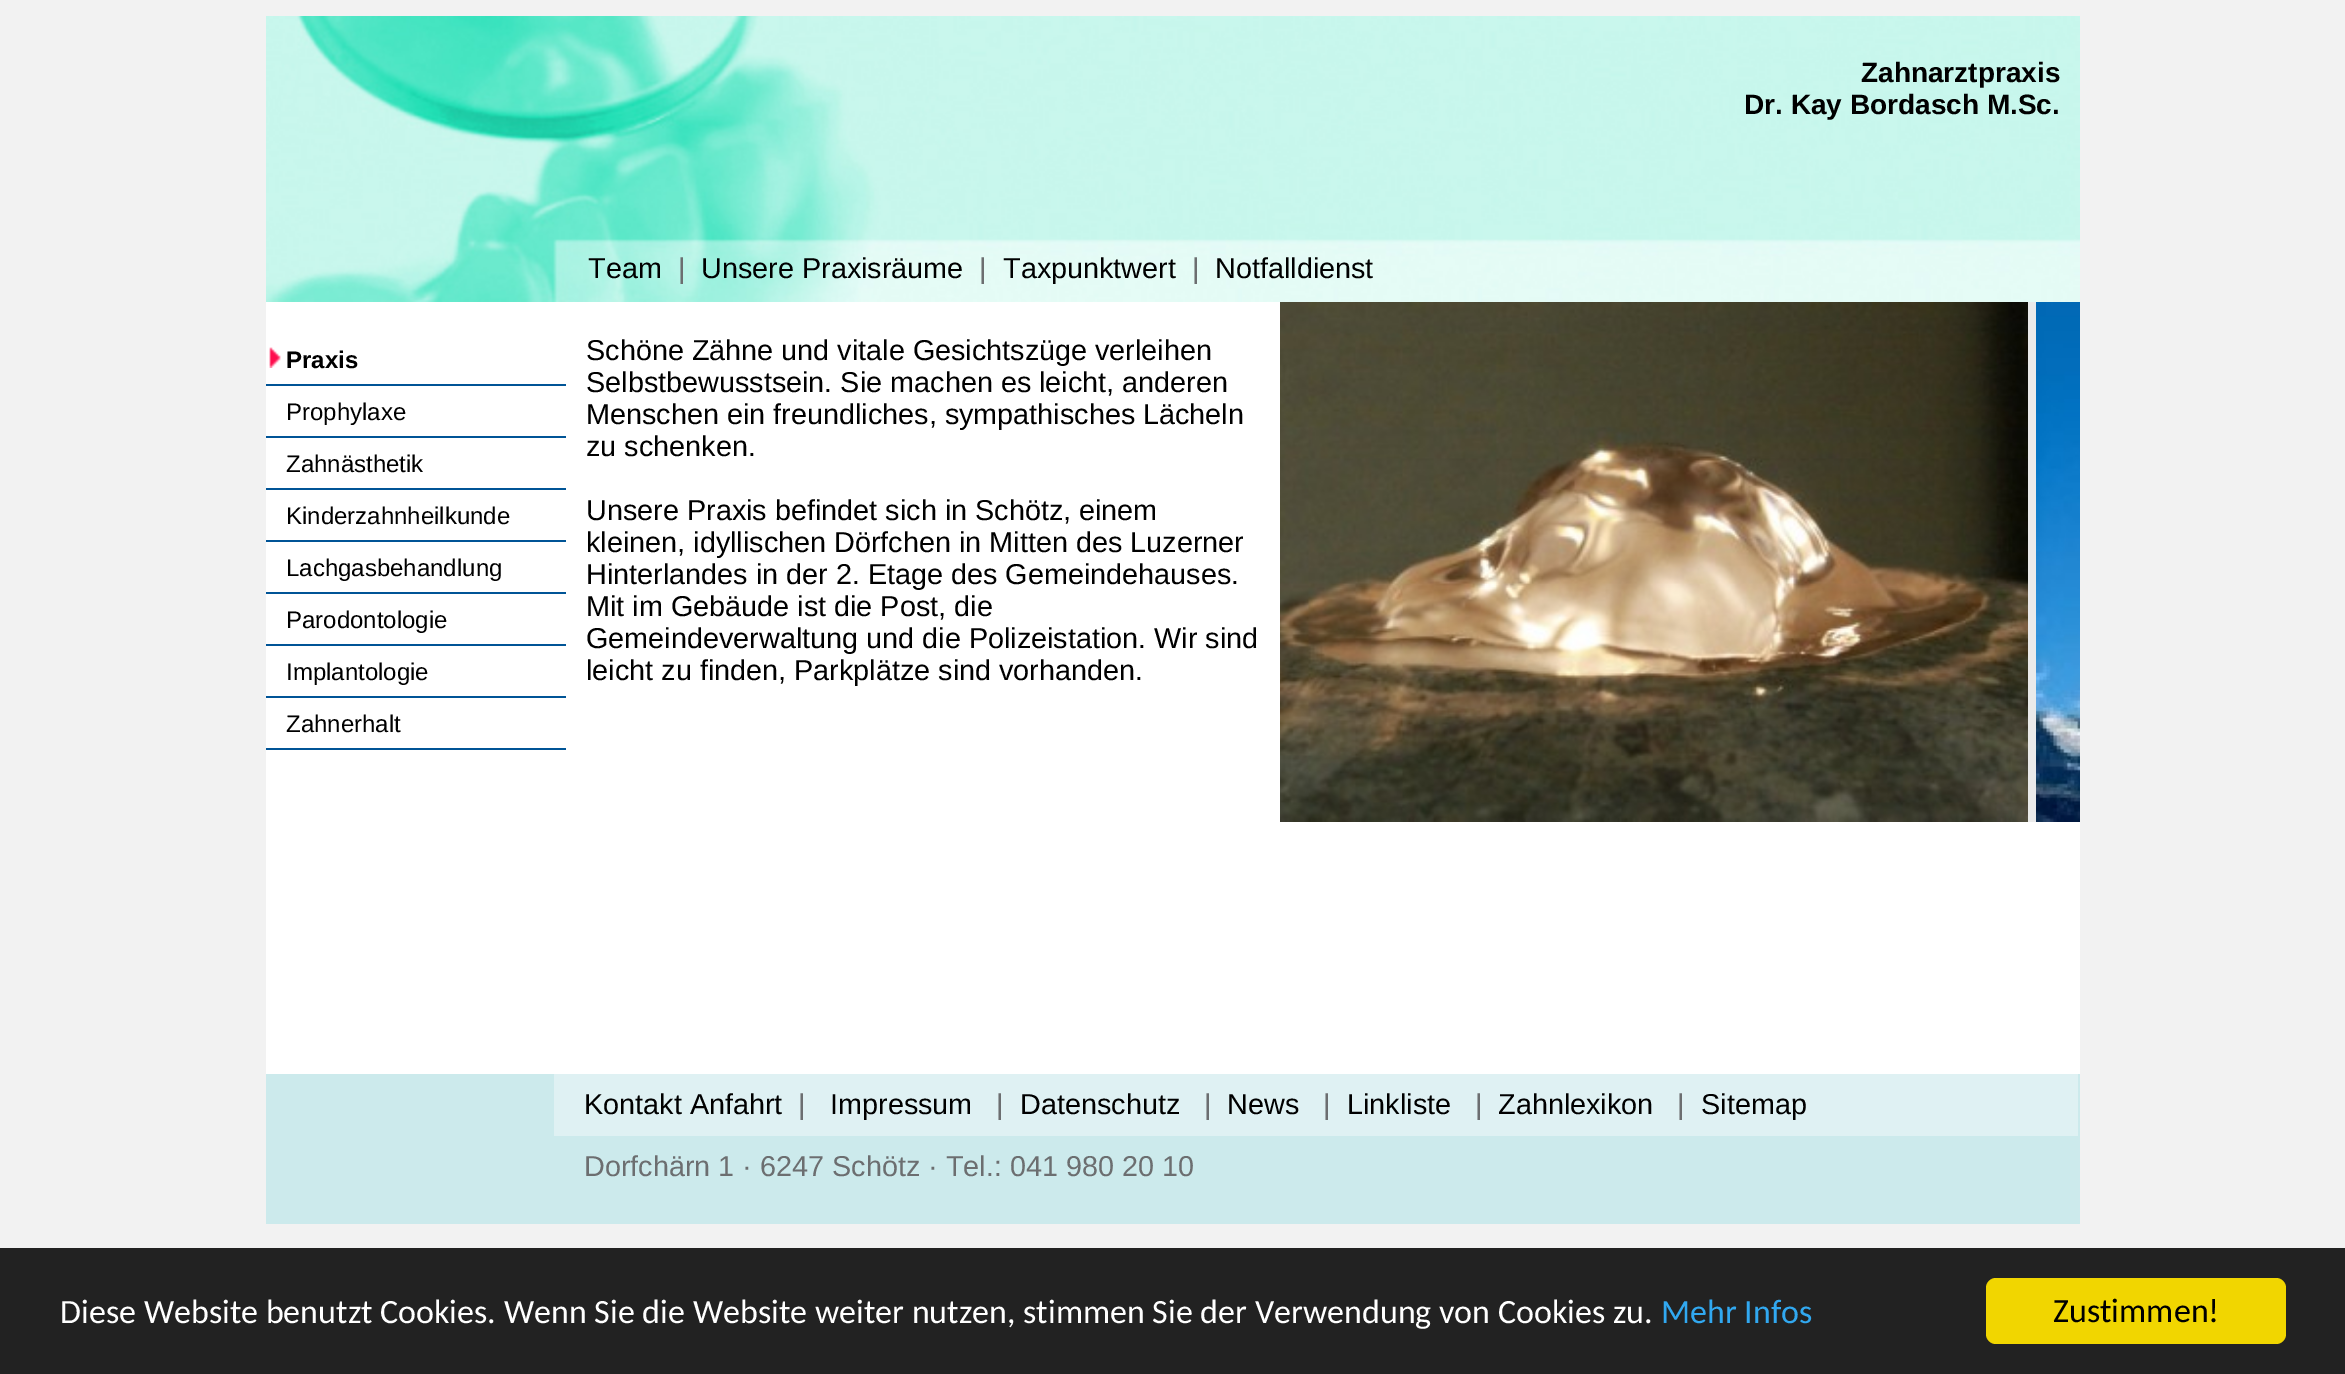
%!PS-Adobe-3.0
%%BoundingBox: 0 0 2345 1374
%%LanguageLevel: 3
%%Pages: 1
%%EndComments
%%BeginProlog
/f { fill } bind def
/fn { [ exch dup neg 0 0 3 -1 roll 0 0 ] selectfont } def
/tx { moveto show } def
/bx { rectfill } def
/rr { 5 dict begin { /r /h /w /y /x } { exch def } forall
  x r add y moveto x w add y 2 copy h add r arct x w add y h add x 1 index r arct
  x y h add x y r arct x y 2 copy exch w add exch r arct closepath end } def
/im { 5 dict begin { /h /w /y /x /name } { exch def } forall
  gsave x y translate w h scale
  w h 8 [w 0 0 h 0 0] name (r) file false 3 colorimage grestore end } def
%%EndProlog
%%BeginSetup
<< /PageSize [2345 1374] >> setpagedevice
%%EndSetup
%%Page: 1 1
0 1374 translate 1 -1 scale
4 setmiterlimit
0.949 setgray
0 0 2345 1374 bx
(image0.raw) 266 16 1814 286 im
/LiberationSans-Bold 28 fn
0 setgray
(Zahnarztpraxis) 1861 82 tx
(Dr. Kay Bordasch M.Sc.) 1744 114 tx
/LiberationSans-Regular 28.8 fn
(Team) 588 278 tx
0.424 0.431 0.439 setrgbcolor
(|) 678 278 tx
0 setgray
(Unsere Praxisräume) 701 278 tx
0.424 0.431 0.439 setrgbcolor
(|) 979 278 tx
0 setgray
(Taxpunktwert) 1003 278 tx
0.424 0.431 0.439 setrgbcolor
(|) 1192 278 tx
0 setgray
(Notfalldienst) 1215 278 tx
1 setgray
266 302 1814 772 bx
0 0.329 0.588 setrgbcolor
266 384 300 2 bx
(image1.raw) 269 347 12 21 im
/LiberationSans-Bold 24 fn
0 setgray
(Praxis) 286 368 tx
0 0.329 0.588 setrgbcolor
266 436 300 2 bx
/LiberationSans-Regular 24 fn
0 setgray
(Prophylaxe) 286 420 tx
0 0.329 0.588 setrgbcolor
266 488 300 2 bx
0 setgray
(Zahnästhetik) 286 472 tx
0 0.329 0.588 setrgbcolor
266 540 300 2 bx
0 setgray
(Kinderzahnheilkunde) 286 524 tx
0 0.329 0.588 setrgbcolor
266 592 300 2 bx
0 setgray
(Lachgasbehandlung) 286 576 tx
0 0.329 0.588 setrgbcolor
266 644 300 2 bx
0 setgray
(Parodontologie) 286 628 tx
0 0.329 0.588 setrgbcolor
266 696 300 2 bx
0 setgray
(Implantologie) 286 680 tx
0 0.329 0.588 setrgbcolor
266 748 300 2 bx
0 setgray
(Zahnerhalt) 286 732 tx
/LiberationSans-Regular 28.8 fn
(Schöne Zähne und vitale Gesichtszüge verleihen) 586 360 tx
(Selbstbewusstsein. Sie machen es leicht, anderen) 586 392 tx
(Menschen ein freundliches, sympathisches Lächeln) 586 424 tx
(zu schenken.) 586 456 tx
(Unsere Praxis befindet sich in Schötz, einem) 586 520 tx
(kleinen, idyllischen Dörfchen in Mitten des Luzerner) 586 552 tx
(Hinterlandes in der 2. Etage des Gemeindehauses.) 586 584 tx
(Mit im Gebäude ist die Post, die) 586 616 tx
(Gemeindeverwaltung und die Polizeistation. Wir sind) 586 648 tx
(leicht zu finden, Parkplätze sind vorhanden.) 586 680 tx
0.918 setgray
2028 302 8 520 bx
(image2.raw) 1280 302 748 520 im
(image3.raw) 2036 302 44 520 im
0.8 0.918 0.925 setrgbcolor
266 1074 1814 150 bx
0.875 0.945 0.953 setrgbcolor
554 1074 1524 62 bx
0 setgray
(Kontakt Anfahrt) 584 1114 tx
0.424 0.431 0.439 setrgbcolor
(|) 798 1114 tx
0 setgray
(Impressum) 830 1114 tx
0.424 0.431 0.439 setrgbcolor
(|) 996 1114 tx
0 setgray
(Datenschutz) 1020 1114 tx
0.424 0.431 0.439 setrgbcolor
(|) 1204 1114 tx
0 setgray
(News) 1227 1114 tx
0.424 0.431 0.439 setrgbcolor
(|) 1323 1114 tx
0 setgray
(Linkliste) 1347 1114 tx
0.424 0.431 0.439 setrgbcolor
(|) 1475 1114 tx
0 setgray
(Zahnlexikon) 1498 1114 tx
0.424 0.431 0.439 setrgbcolor
(|) 1677 1114 tx
0 setgray
(Sitemap) 1701 1114 tx
0.424 0.431 0.439 setrgbcolor
(Dorfchärn 1 · 6247 Schötz · Tel.: 041 980 20 10) 584 1176 tx
0.133 setgray
0 1248 2345 126 bx
/Carlito-Regular 34 fn
1 setgray
(Diese Website benutzt Cookies. Wenn Sie die Website weiter nutzen, stimmen Sie der Verwendung von Cookies zu.) 60 1323 tx
0.192 0.659 0.941 setrgbcolor
(Mehr Infos) 1661 1323 tx
0.945 0.839 0 setrgbcolor
1986 1278 300 66 10 rr f
0 setgray
(Zustimmen!) 2053 1322 tx
showpage
%%EOF
